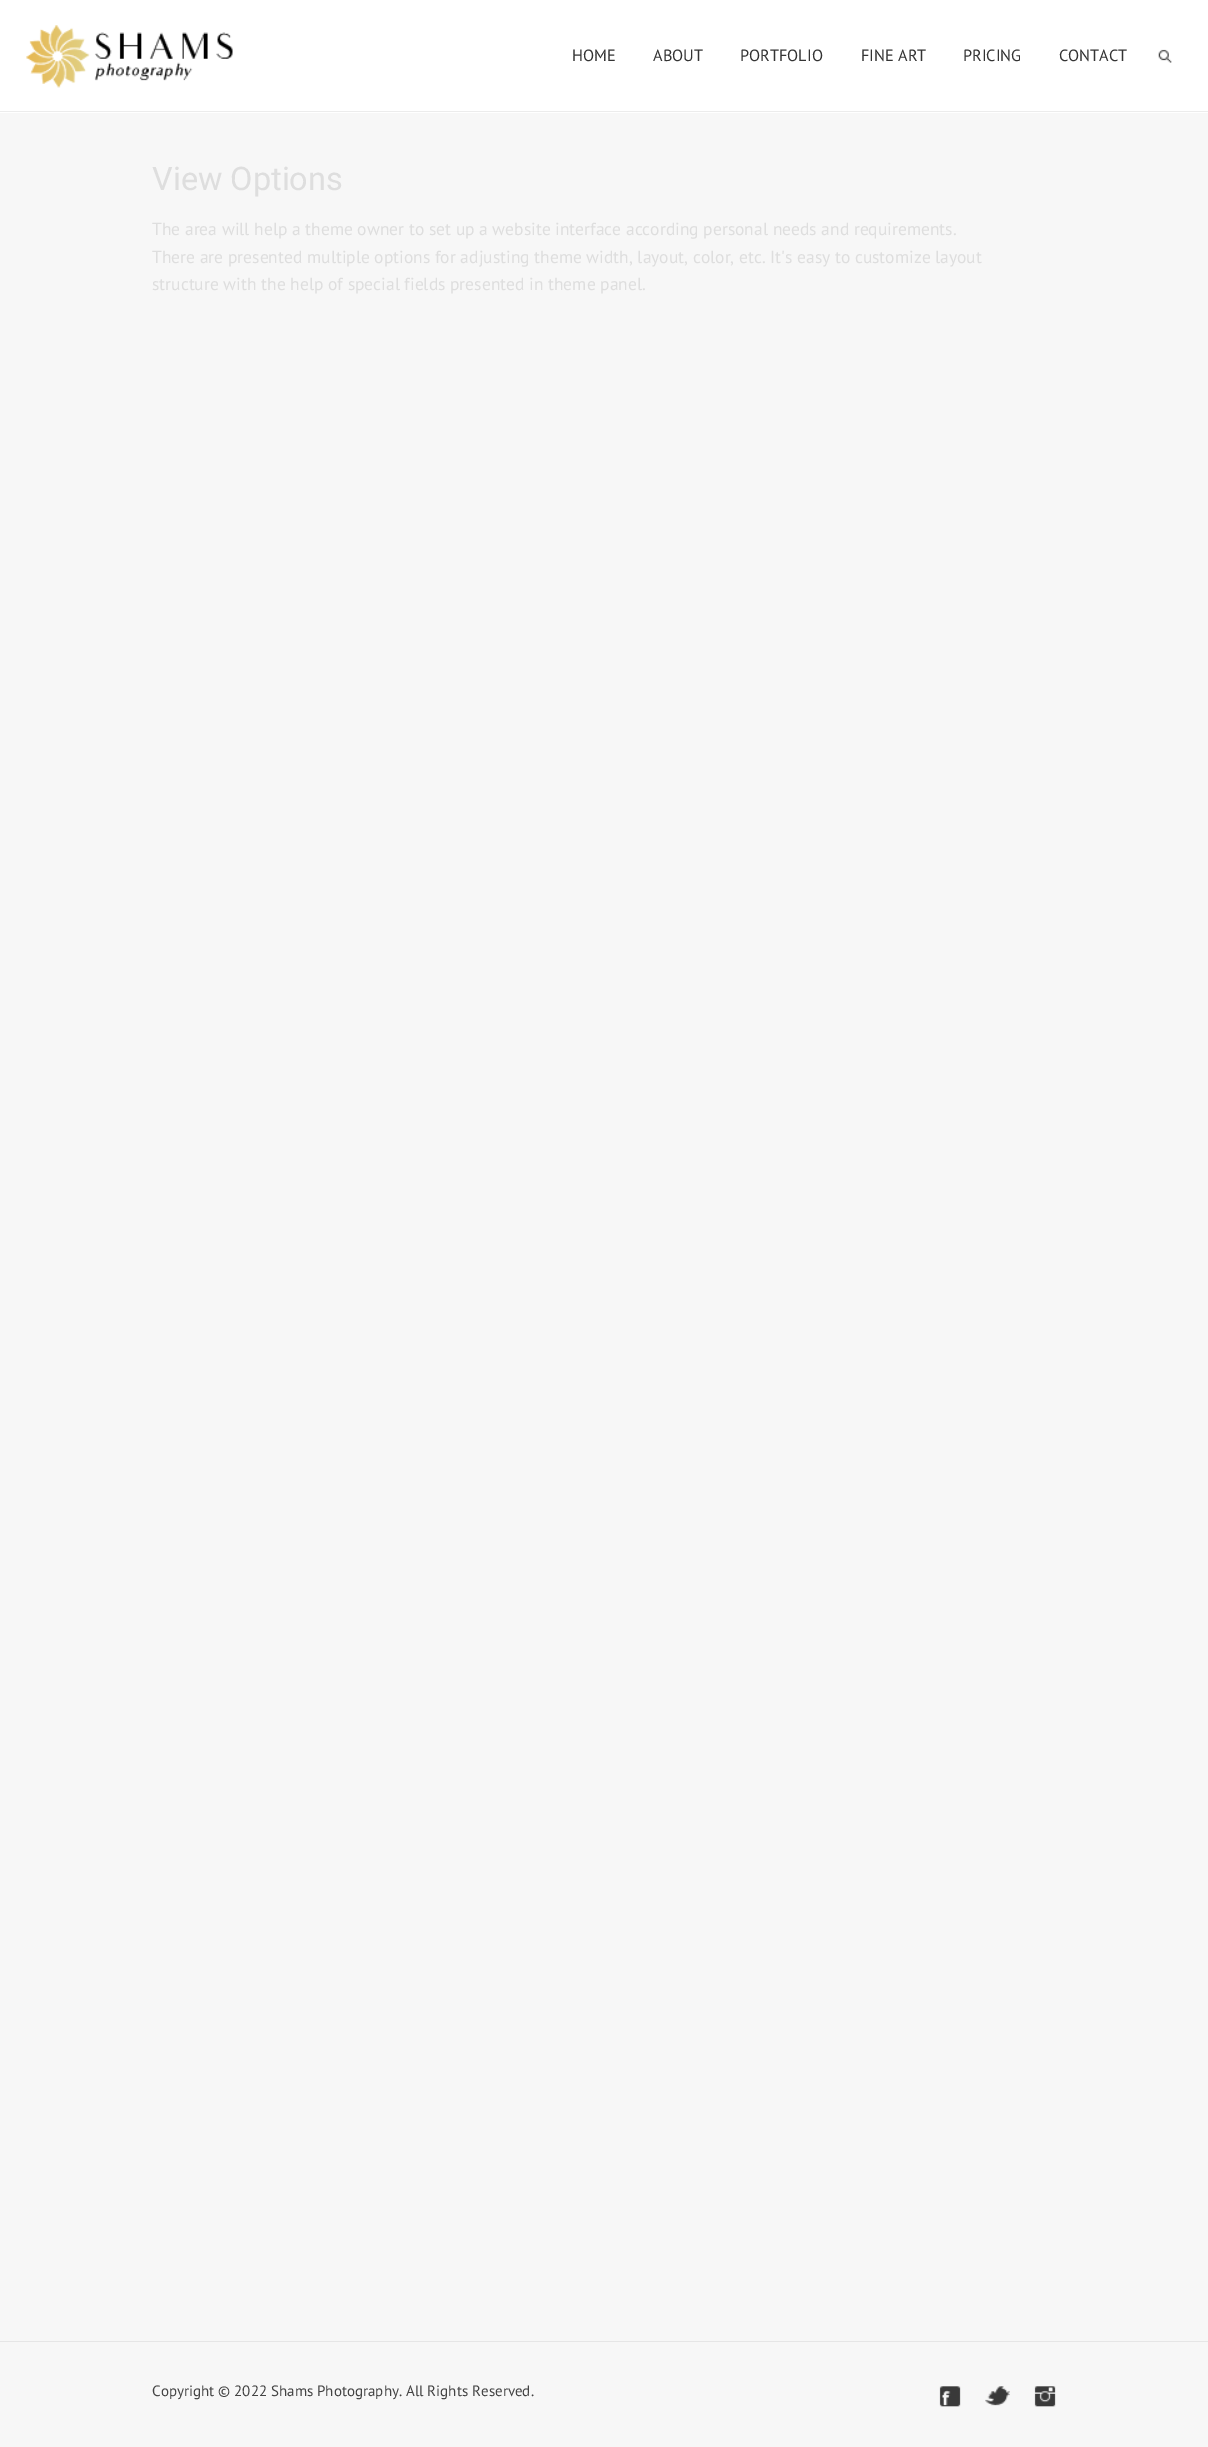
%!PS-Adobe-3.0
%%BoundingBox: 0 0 1208 2447
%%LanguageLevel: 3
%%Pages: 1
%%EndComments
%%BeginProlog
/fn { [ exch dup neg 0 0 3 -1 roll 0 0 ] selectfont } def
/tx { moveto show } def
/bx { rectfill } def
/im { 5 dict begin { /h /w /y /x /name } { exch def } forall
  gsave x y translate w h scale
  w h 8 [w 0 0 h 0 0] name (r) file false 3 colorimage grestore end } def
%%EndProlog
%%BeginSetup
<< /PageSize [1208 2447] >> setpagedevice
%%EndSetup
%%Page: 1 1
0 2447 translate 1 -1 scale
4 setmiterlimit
0.969 setgray
0 0 1208 2447 bx
1 setgray
0 0 1208 113 bx
0.925 setgray
0 111 1208 1 bx
(image0.raw) 26 25 207 63 im
/PTSans-Regular 16.25 fn
0.204 setgray
(HOME) 572 61 tx
(ABOUT) 653 61 tx
(PORTFOLIO) 740 61 tx
(FINE ART) 861 61 tx
(PRICING) 963 61 tx
(CONTACT) 1059 61 tx
(image1.raw) 1158 49 14 14 im
/Roboto-Regular 32.5 fn
0.871 setgray
(View Options) 152 190 tx
/PTSans-Regular 17.5 fn
(The area will help a theme owner to set up a website interface according personal needs and requirements.) 152 235 tx
(There are presented multiple options for adjusting theme width, layout, color, etc. It's easy to customize layout) 152 263 tx
(structure with the help of special fields presented in theme panel.) 152 290 tx
0.902 setgray
0 2341 1208 1 bx
/PTSans-Regular 15 fn
0.263 setgray
(Copyright © 2022 Shams Photography. All Rights Reserved.) 152 2396 tx
(image2.raw) 939 2386 22 21 im
(image3.raw) 985 2386 25 20 im
(image4.raw) 1034 2386 22 21 im
showpage
%%EOF
